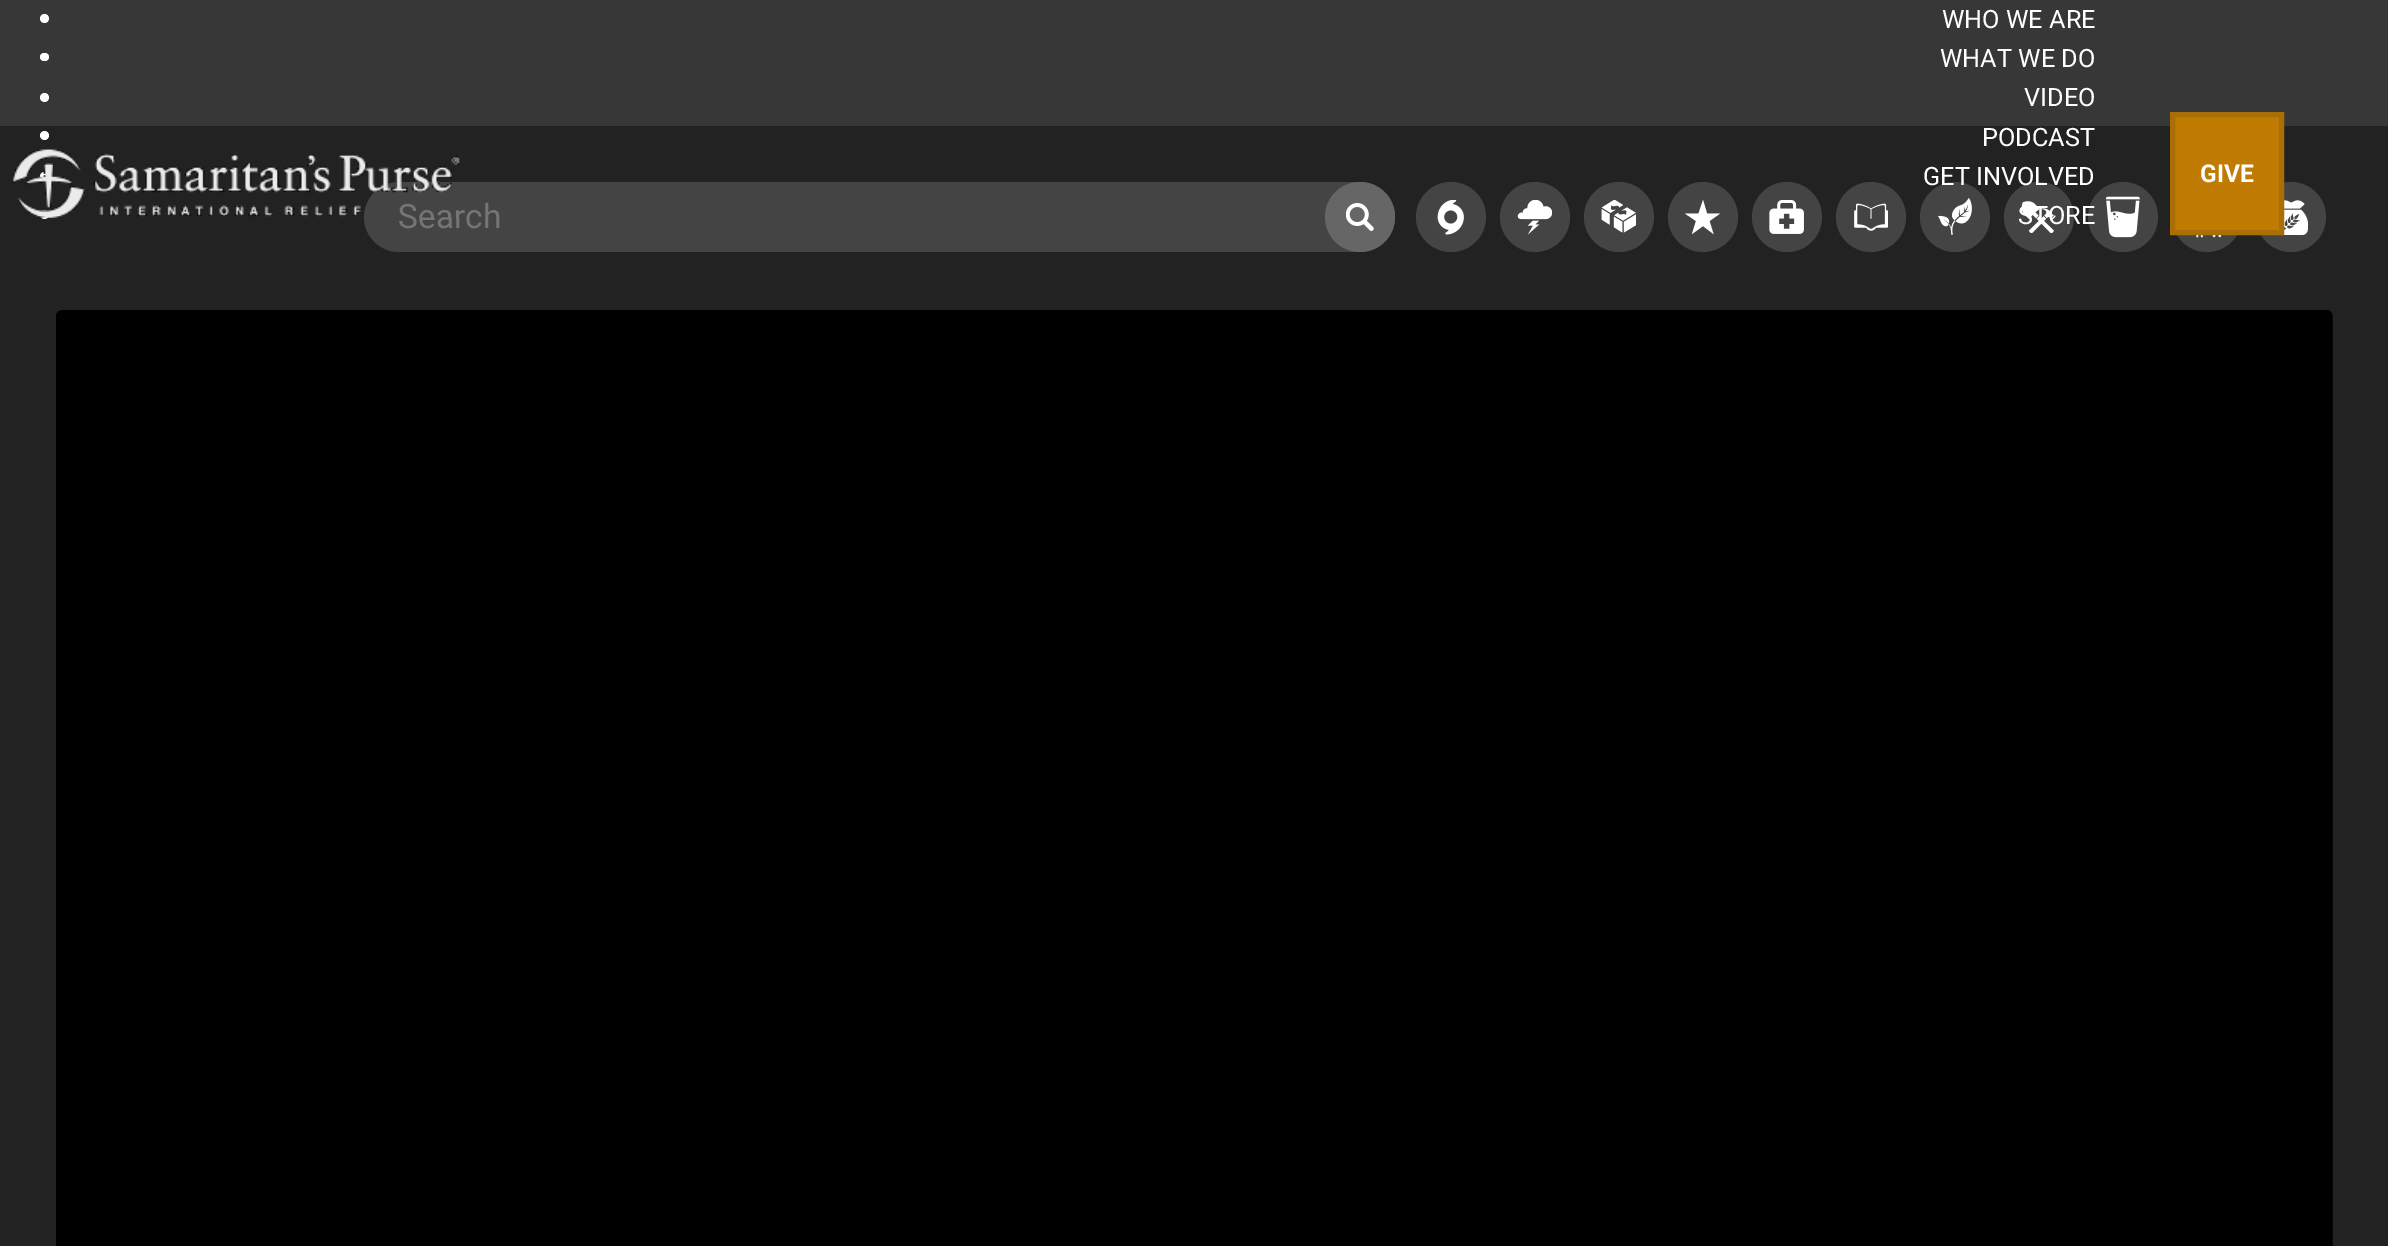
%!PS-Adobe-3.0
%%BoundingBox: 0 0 2388 1246
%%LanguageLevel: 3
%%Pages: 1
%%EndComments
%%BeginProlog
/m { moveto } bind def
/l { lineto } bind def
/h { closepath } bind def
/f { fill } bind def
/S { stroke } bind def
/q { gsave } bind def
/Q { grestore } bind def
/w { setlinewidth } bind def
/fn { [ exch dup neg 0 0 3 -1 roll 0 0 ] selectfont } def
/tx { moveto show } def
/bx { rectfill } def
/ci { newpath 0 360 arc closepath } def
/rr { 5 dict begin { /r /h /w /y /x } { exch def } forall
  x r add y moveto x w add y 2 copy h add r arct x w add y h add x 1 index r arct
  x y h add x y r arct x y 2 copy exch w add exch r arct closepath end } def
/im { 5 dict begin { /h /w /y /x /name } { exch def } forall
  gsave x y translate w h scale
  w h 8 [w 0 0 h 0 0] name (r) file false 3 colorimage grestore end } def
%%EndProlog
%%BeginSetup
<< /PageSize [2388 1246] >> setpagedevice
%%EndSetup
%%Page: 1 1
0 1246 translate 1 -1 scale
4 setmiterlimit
0.133 setgray
0 0 2388 1246 bx
0.267 setgray
364 182 1031 70 35 rr f
/Roboto-Regular 33.5 fn
0.459 setgray
(Search) 398 228 tx
0.4 setgray
1360 217 35 ci f
(image0.raw) 1346 203 28 28 im
0.267 setgray
1451 217 35 ci f
(image1.raw) 1437 200 27 35 im
1535 217 35 ci f
(image2.raw) 1517 200 35 35 im
1619 217 35 ci f
(image3.raw) 1601 200 35 33 im
1703 217 35 ci f
1 setgray
1703 226 m 1713.5 234 l 1709.5 221 l 1720 213.5 l 1707 213.5 l 1703 200 l 1698.5 213.5 l 1685 213.5 l 1696 221 l 1692 234 l h f
0.267 setgray
1787 217 35 ci f
(image4.raw) 1769 200 35 34 im
1871 217 35 ci f
(image5.raw) 1854 203 34 28 im
1955 217 35 ci f
(image6.raw) 1938 198 34 37 im
2039 217 35 ci f
(image7.raw) 2021 201 35 32 im
2123 217 35 ci f
(image8.raw) 2105 196 35 42 im
2207 217 35 ci f
(image9.raw) 2196 235 26 3 im
2291 217 35 ci f
(image10.raw) 2284 200 24 35 im
(image11.raw) 56 310 2277 936 im
0.216 setgray
0 0 2388 126 bx
1 setgray
40 172 9 8 4 rr f
44.5 214.5 4.5 ci f
(image12.raw) 13 149 447 69 im
44.5 18.5 4.5 ci f
/Roboto-Regular 25.25 fn
(WHO WE ARE) 1942 28 tx
40 53 9 8 4 rr f
(WHAT WE DO) 1940 67 tx
44.5 97.5 4.5 ci f
(VIDEO) 2024 106 tx
44.5 135.5 4.5 ci f
(PODCAST) 1982 146 tx
(GET INVOLVED) 1923 185 tx
(STORE) 2018 224 tx
0.753 0.482 0.008 setrgbcolor
2172.5 114.5 m 2281.5 114.5 l 2281.5 232.5 l 2172.5 232.5 l h q f Q
0.667 0.431 0.024 setrgbcolor
5 w
S
/Roboto-Bold 24.5 fn
1 setgray
(GIVE) 2200 182 tx
showpage
%%EOF
